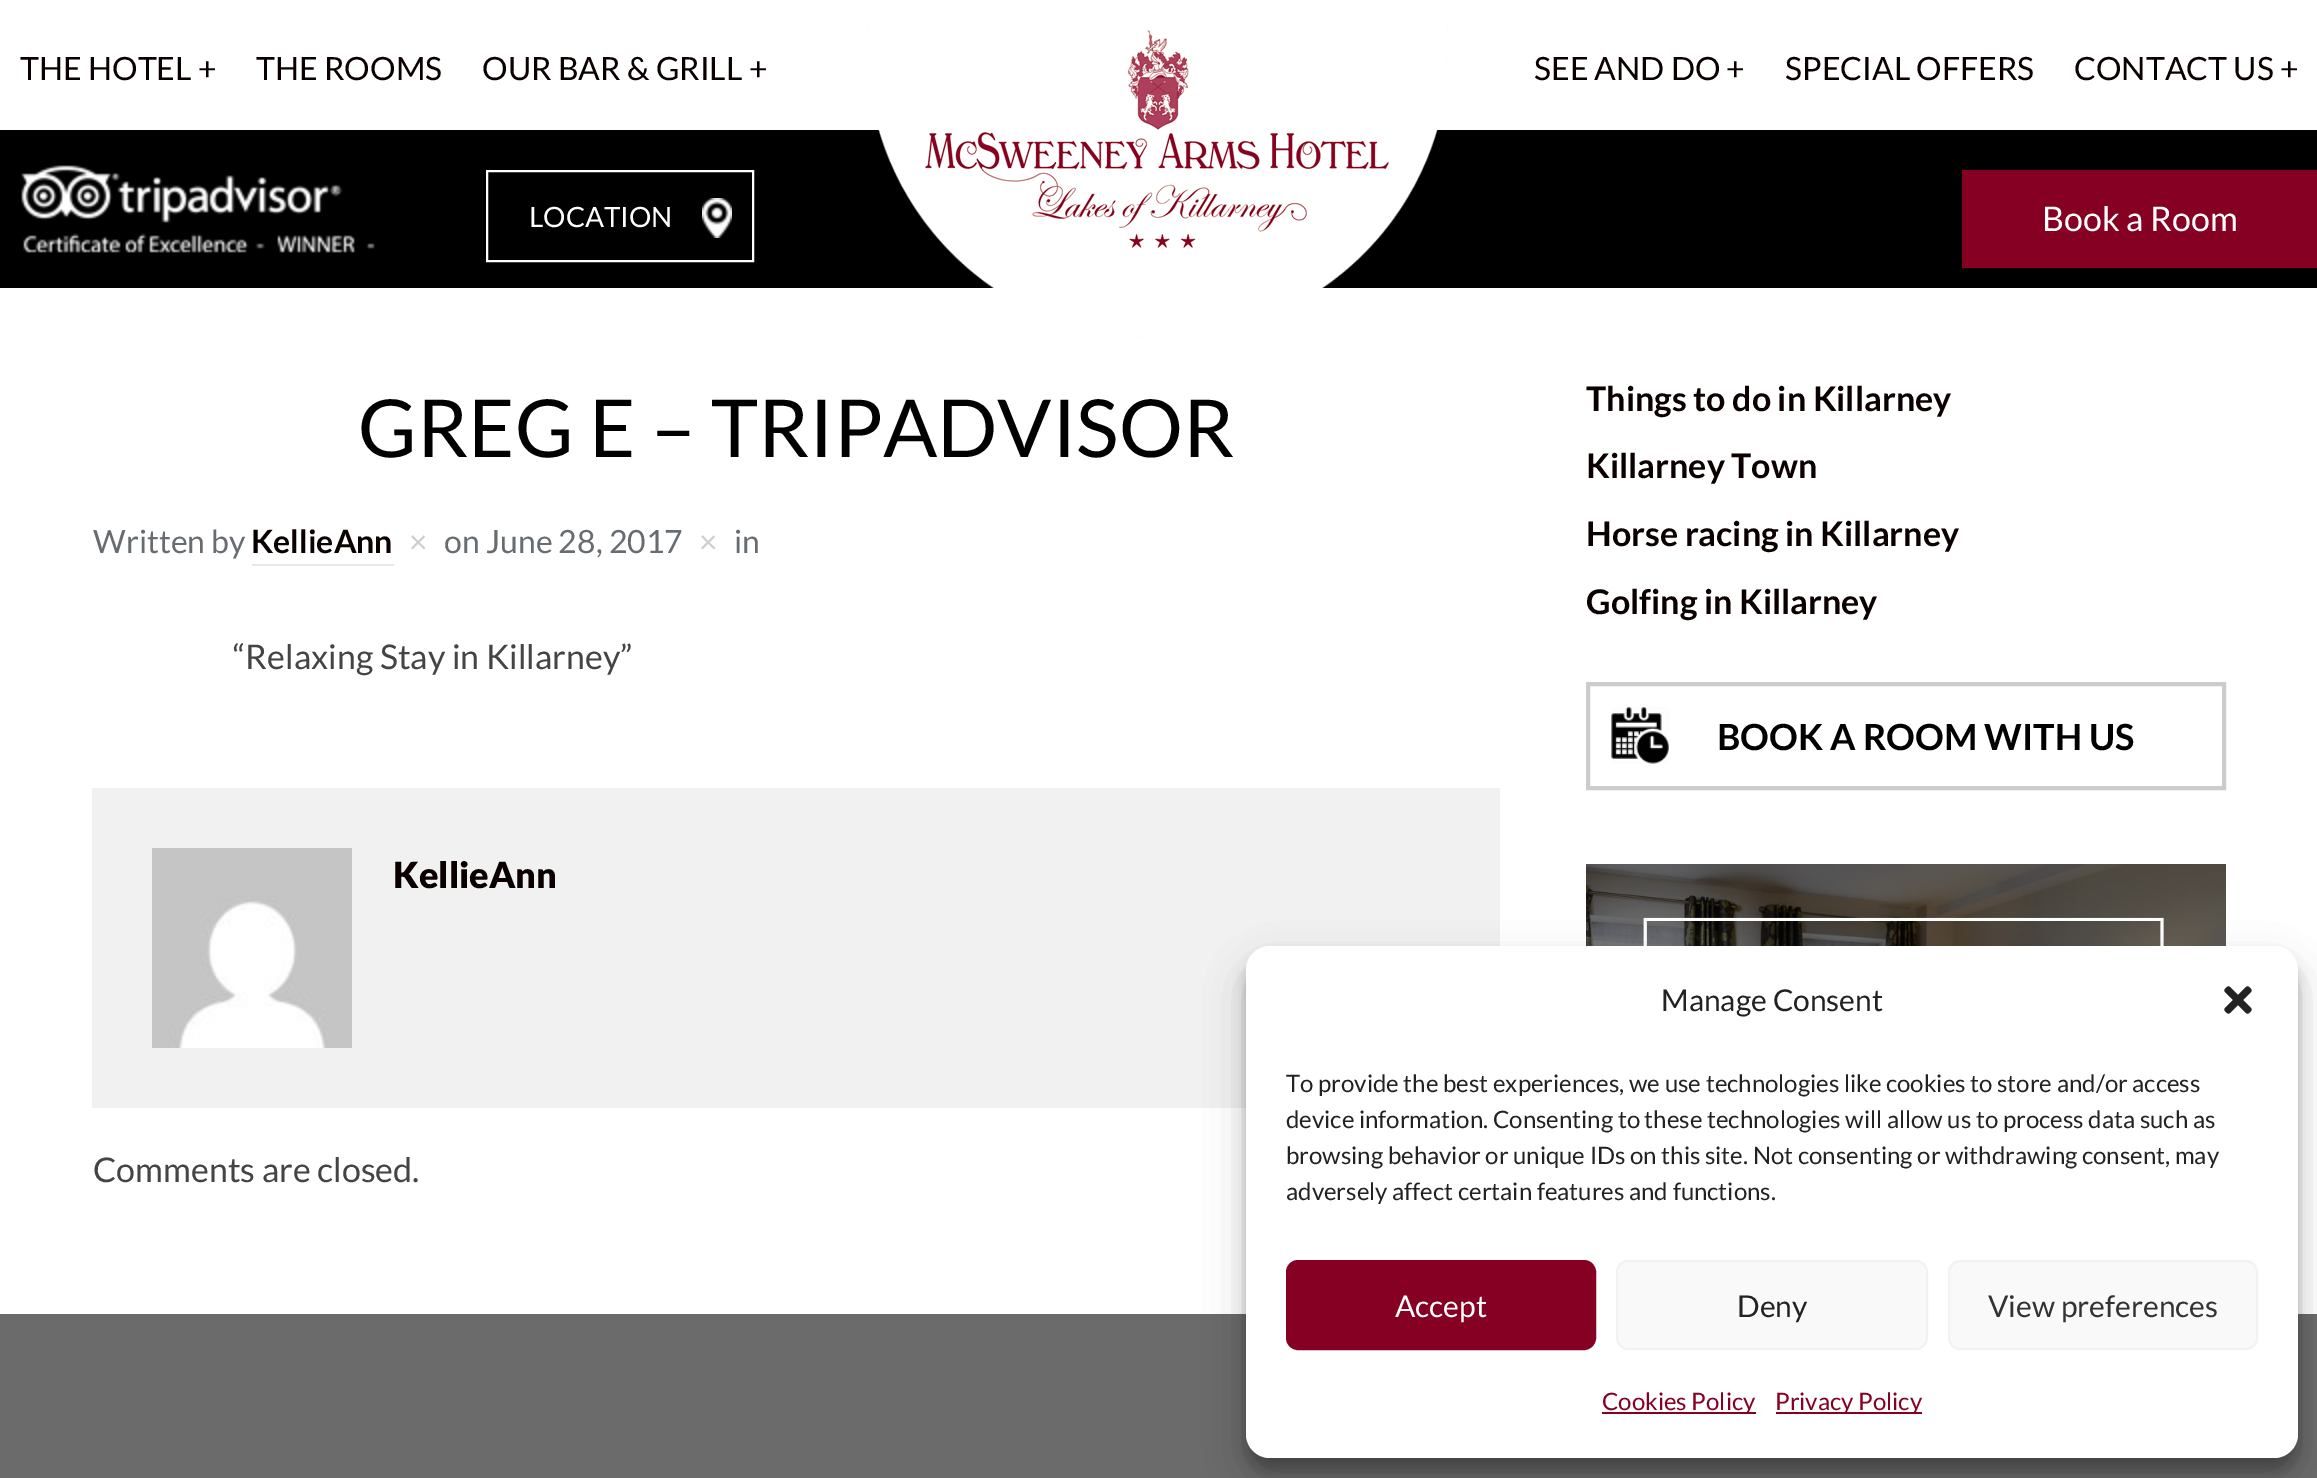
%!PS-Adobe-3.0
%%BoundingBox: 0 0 2317 1478
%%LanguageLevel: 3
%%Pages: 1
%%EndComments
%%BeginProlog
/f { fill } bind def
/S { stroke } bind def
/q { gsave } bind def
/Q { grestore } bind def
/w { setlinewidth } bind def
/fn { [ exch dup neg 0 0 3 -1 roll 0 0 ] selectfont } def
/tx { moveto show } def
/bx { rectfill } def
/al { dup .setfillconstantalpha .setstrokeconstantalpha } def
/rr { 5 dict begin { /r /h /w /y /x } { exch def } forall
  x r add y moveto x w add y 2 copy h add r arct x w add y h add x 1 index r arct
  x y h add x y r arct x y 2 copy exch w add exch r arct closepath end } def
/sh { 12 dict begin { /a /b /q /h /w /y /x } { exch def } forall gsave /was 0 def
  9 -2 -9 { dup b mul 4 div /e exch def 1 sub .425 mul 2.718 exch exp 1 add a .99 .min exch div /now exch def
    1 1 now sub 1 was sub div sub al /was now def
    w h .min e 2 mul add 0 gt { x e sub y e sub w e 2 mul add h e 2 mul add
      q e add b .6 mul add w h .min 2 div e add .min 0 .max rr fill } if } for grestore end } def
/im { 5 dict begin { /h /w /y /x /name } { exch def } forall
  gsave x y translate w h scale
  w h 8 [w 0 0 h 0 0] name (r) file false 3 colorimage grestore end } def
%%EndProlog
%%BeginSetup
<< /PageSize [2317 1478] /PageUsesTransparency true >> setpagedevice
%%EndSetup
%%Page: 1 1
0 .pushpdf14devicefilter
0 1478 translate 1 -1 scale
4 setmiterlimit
1 setgray
0 0 2317 1478 bx
0 setgray
0 130 2317 158 bx
(image0.raw) 867 2 582 337 im
/Lato-Regular 32 fn
0.039 0 0 setrgbcolor
(THE HOTEL +) 20 80 tx
(THE ROOMS) 256 80 tx
(OUR BAR & GRILL +) 482 80 tx
(SEE AND DO +) 1534 80 tx
(SPECIAL OFFERS) 1785 80 tx
(CONTACT US +) 2074 80 tx
(image1.raw) 21 165 354 88 im
(image2.raw) 702 198 30 40 im
1 setgray
2 w
487 171 266 90 rectstroke
/Lato-Regular 28 fn
(LOCATION) 529 227 tx
0.522 0 0.133 setrgbcolor
1962 170 355 98 bx
/Lato-Regular 34 fn
1 setgray
(Book a Room) 2042 231 tx
/Lato-Regular 80 fn
0 setgray
(GREG E – TRIPADVISOR) 358 457 tx
/Lato-Regular 32 fn
0.404 0.424 0.443 setrgbcolor
(Written by) 93 553 tx
/Lato-Bold 32 fn
0.039 0 0 setrgbcolor
(KellieAnn) 251 553 tx
0.91 setgray
252 564 142 2 bx
/Lato-Regular 32 fn
0.8 0.812 0.812 setrgbcolor
(×) 409 553 tx
0.404 0.424 0.443 setrgbcolor
(on June 28, 2017) 444 553 tx
0.8 0.812 0.812 setrgbcolor
(×) 699 553 tx
0.404 0.424 0.443 setrgbcolor
(in) 734 553 tx
/Lato-Regular 34 fn
0.267 setgray
(“Relaxing Stay in Killarney”) 233 669 tx
0.945 setgray
92 788 1408 320 bx
(image3.raw) 152 848 200 200 im
/Lato-Black 36 fn
0.039 0 0 setrgbcolor
(KellieAnn) 393 888 tx
/Lato-Regular 34 fn
0.267 setgray
(Comments are closed.) 93 1182 tx
/Lato-Bold 34 fn
0.039 0 0 setrgbcolor
(Things to do in Killarney) 1586 411 tx
(Killarney Town) 1586 478 tx
(Horse racing in Killarney) 1586 546 tx
(Golfing in Killarney) 1586 614 tx
(image4.raw) 1611 707 58 57 im
0.8 setgray
4 w
1588 684 636 104 rectstroke
/Lato-Bold 36 fn
0 setgray
(BOOK A ROOM WITH US) 1717 750 tx
(image5.raw) 1586 864 640 82 im
0.42 setgray
0 1314 2317 164 bx
0 setgray
1246 958 1052 512 24 6 0.23 sh
1246 966 1052 512 24 20 0.19 sh
1 setgray
1246 946 1052 512 24 rr f
/Lato-Regular 30 fn
0.133 setgray
(Manage Consent) 1661 1011 tx
(image6.raw) 2224 986 28 28 im
/Lato-Regular 24 fn
(To provide the best experiences, we use technologies like cookies to store and/or access) 1286 1092 tx
(device information. Consenting to these technologies will allow us to process data such as) 1286 1128 tx
(browsing behavior or unique IDs on this site. Not consenting or withdrawing consent, may) 1286 1164 tx
(adversely affect certain features and functions.) 1286 1200 tx
0.522 0 0.133 setrgbcolor
1287 1261 308 88 11 rr q f Q
2 w
S
/Lato-Regular 30 fn
1 setgray
(Accept) 1395 1317 tx
0.976 setgray
1617 1261 310 88 11 rr q f Q
0.949 setgray
S
0.133 setgray
(Deny) 1737 1317 tx
0.976 setgray
1949 1261 308 88 11 rr q f Q
0.949 setgray
S
0.2 setgray
(View preferences) 1988 1317 tx
0.522 0 0.133 setrgbcolor
1602 1412 154 2 bx
/Lato-Regular 24 fn
(Cookies Policy) 1602 1410 tx
1776 1412 146 2 bx
(Privacy Policy) 1775 1410 tx
.poppdf14devicefilter showpage
%%EOF
